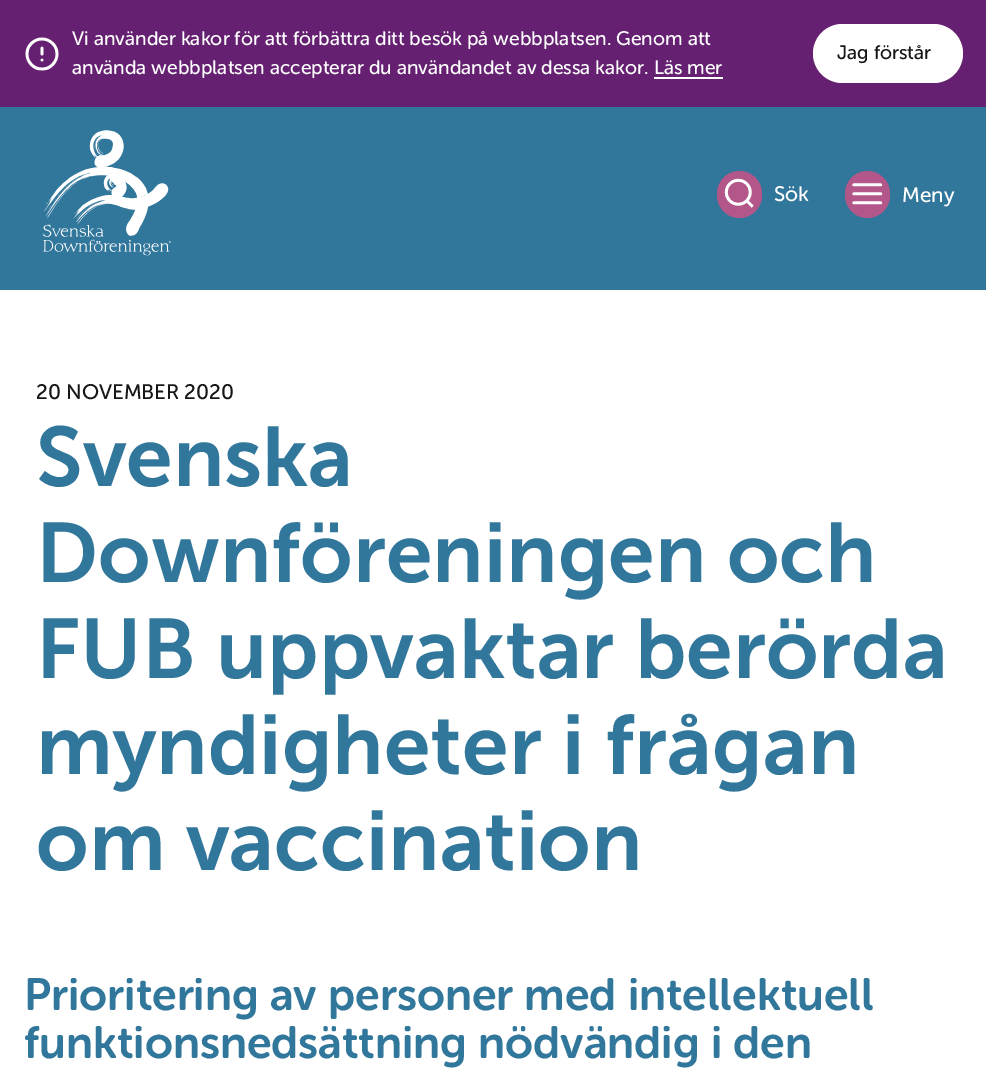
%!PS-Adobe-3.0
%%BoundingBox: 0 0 986 1072
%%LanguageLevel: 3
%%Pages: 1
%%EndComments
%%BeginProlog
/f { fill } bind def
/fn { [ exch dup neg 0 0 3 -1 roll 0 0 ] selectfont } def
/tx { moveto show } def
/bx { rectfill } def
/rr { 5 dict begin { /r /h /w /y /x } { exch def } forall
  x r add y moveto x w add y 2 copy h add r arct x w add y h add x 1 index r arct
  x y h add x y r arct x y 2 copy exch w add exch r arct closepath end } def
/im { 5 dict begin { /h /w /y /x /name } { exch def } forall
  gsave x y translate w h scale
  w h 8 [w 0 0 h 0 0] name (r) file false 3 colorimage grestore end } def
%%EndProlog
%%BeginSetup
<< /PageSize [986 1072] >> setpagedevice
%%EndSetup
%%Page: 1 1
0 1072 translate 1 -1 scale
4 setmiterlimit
1 setgray
0 0 986 1072 bx
0.396 0.125 0.443 setrgbcolor
0 0 986 107 bx
(image0.raw) 25 37 34 34 im
/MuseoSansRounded-Regular 19.5 fn
1 setgray
(Vi använder kakor för att förbättra ditt besök på webbplatsen. Genom att) 72 45 tx
(använda webbplatsen accepterar du användandet av dessa kakor. Läs mer) 72 74 tx
654 77 69 2 bx
813 24 150 59 29.5 rr f
0.09 setgray
(Jag förstår) 837 59 tx
0.192 0.463 0.608 setrgbcolor
0 107 986 183 bx
(image1.raw) 43 130 128 126 im
0.702 0.337 0.537 setrgbcolor
717 171 45 47 22.5 rr f
(image2.raw) 724 178 30 30 im
/MuseoSansRounded-Regular 21 fn
1 setgray
(Sök) 774 201 tx
0.702 0.337 0.537 setrgbcolor
845 171 45 47 22.5 rr f
(image3.raw) 852 183 31 22 im
1 setgray
(Meny) 902 202 tx
0.09 setgray
(20 NOVEMBER 2020) 36 399 tx
/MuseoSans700-SemiBold 84 fn
0.192 0.463 0.608 setrgbcolor
(Svenska) 36 486 tx
(Downföreningen och) 36 582 tx
(FUB uppvaktar berörda) 36 678 tx
(myndigheter i frågan) 36 774 tx
(om vaccination) 36 870 tx
/MuseoSansRounded-SemiBold 45 fn
(Prioritering av personer med intellektuell) 24 1010 tx
(funktionsnedsättning nödvändig i den) 24 1058 tx
showpage
%%EOF
